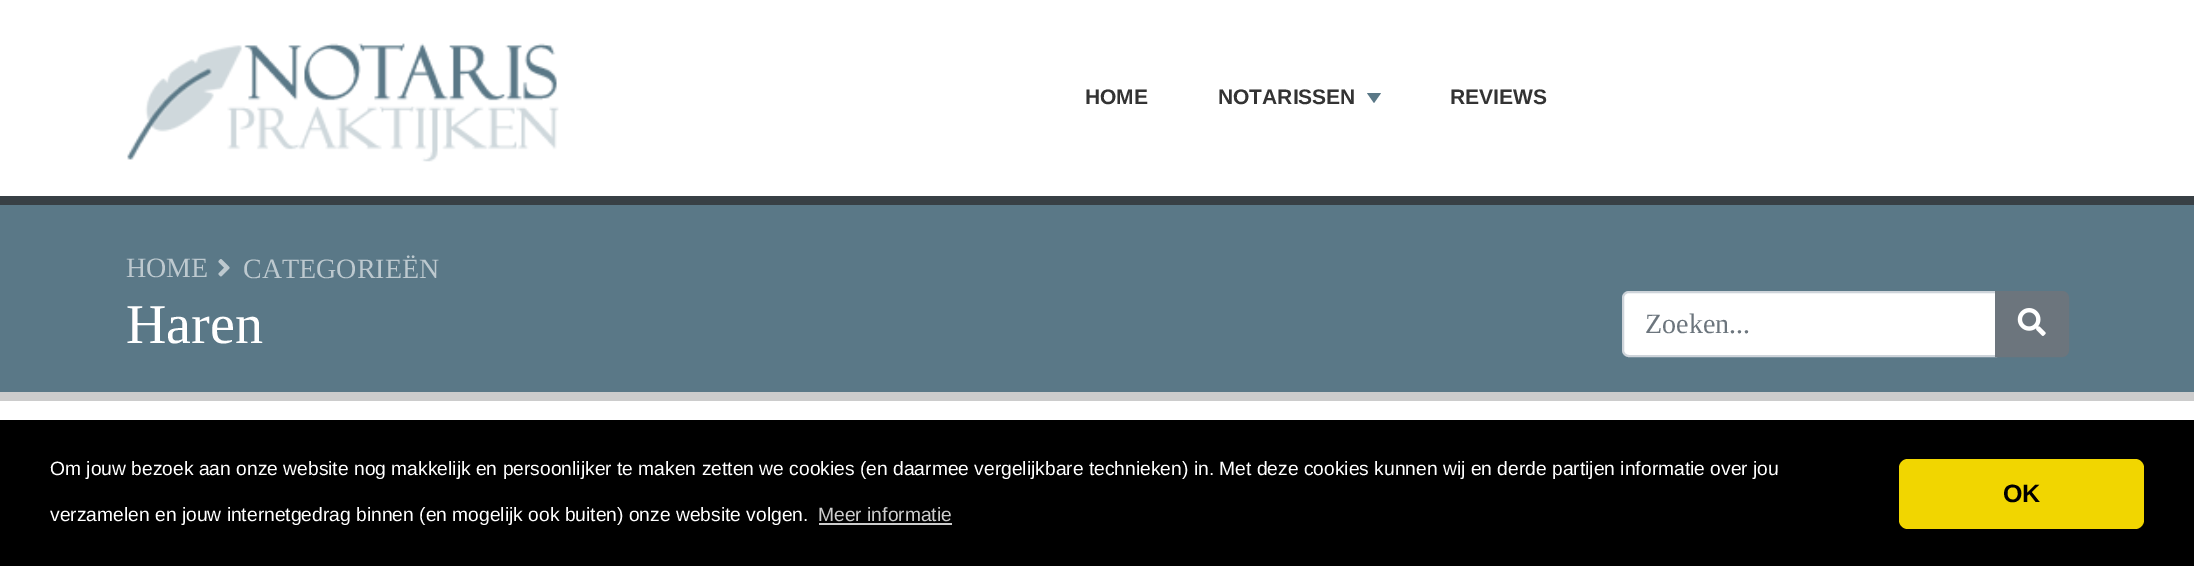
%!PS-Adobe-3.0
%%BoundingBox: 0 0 2194 566
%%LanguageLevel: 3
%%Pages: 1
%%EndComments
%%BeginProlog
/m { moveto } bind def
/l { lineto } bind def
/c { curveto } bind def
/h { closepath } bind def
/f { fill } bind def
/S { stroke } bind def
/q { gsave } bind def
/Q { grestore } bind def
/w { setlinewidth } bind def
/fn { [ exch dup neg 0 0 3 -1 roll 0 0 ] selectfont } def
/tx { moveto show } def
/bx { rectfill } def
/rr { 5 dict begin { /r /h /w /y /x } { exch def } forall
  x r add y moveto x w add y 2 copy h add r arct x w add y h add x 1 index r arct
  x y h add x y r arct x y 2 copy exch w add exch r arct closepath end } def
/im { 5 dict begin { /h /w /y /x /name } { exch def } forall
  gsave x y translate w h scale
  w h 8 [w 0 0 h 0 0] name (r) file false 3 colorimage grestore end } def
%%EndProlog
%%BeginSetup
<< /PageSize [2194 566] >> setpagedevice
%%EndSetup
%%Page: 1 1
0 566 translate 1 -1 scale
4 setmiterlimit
1 setgray
0 0 2194 566 bx
(image0.raw) 127 43 432 119 im
/LiberationSans-Bold 21 fn
0.2 setgray
(HOME) 1085 104 tx
(NOTARISSEN) 1218 104 tx
0.353 0.471 0.529 setrgbcolor
1367 93 m 1381 93 l 1374 103 l h f
0.2 setgray
(REVIEWS) 1450 104 tx
0.353 0.471 0.529 setrgbcolor
0 205 2194 187 bx
0.22 0.251 0.271 setrgbcolor
0 196 2194 9 bx
0.8 setgray
0 392 2194 9 bx
/LiberationSerif-Regular 28 fn
0.741 0.788 0.812 setrgbcolor
(HOME) 126 277 tx
(image1.raw) 218 259 12 18 im
(CATEGORIEËN) 243 278 tx
/LiberationSerif-Regular 56 fn
1 setgray
(Haren) 126 343 tx
1629 292 m 1996 292 l 1996 356 l 1629 356 l 1625.5 356 1623 353.5 1623 350 c 1623 298 l 1623 294.5 1625.5 292 1629 292 c h q f Q
0.808 0.831 0.855 setrgbcolor
2 w
S
/LiberationSerif-Regular 28 fn
0.424 0.459 0.49 setrgbcolor
(Zoeken...) 1645 333 tx
1996 292 m 2062 292 l 2065.5 292 2068 294.5 2068 298 c 2068 350 l 2068 353.5 2065.5 356 2062 356 c 1996 356 l h q f Q
S
(image2.raw) 2017 308 29 28 im
0 setgray
0 420 2194 146 bx
/LiberationSans-Regular 19.25 fn
1 setgray
(Om jouw bezoek aan onze website nog makkelijk en persoonlijker te maken zetten we cookies \(en daarmee vergelijkbare technieken\) in. Met deze cookies kunnen wij en derde partijen informatie over jou) 50 475 tx
(verzamelen en jouw internetgedrag binnen \(en mogelijk ook buiten\) onze website volgen.) 50 521 tx
0.8 setgray
(Meer informatie) 818 521 tx
819 523 133 2 bx
0.945 0.839 0 setrgbcolor
1899 459 245 70 9 rr f
/LiberationSans-Bold 25 fn
0 setgray
(OK) 2003 502 tx
showpage
%%EOF
